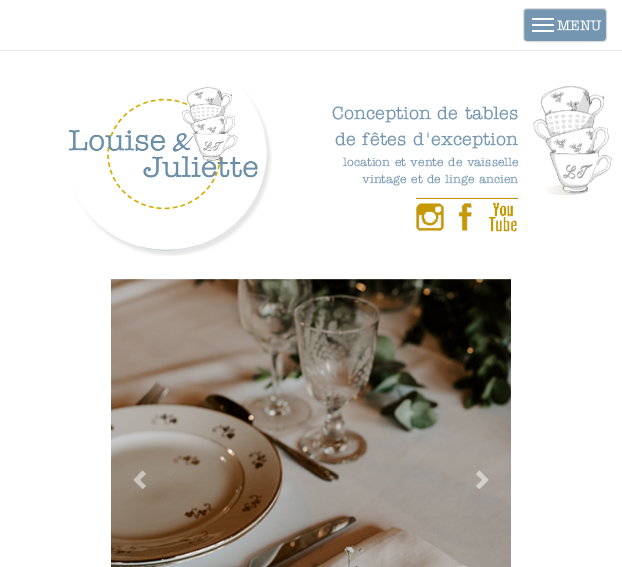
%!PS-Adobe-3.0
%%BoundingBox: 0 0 622 567
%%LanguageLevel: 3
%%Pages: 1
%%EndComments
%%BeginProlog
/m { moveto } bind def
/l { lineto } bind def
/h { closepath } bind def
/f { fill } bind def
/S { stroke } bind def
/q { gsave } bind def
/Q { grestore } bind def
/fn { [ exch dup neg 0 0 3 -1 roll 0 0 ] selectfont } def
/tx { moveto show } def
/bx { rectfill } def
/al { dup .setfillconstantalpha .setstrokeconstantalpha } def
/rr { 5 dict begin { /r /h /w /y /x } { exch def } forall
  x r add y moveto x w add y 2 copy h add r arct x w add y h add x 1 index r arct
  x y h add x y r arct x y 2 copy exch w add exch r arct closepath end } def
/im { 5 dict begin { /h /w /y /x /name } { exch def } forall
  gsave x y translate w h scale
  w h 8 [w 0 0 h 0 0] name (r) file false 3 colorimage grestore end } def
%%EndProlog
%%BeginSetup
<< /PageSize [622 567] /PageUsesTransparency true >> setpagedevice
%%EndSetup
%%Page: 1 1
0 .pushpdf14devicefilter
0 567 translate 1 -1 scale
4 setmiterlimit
1 setgray
0 0 622 567 bx
0.925 setgray
0 50 622 1 bx
0.455 0.588 0.694 setrgbcolor
523.5 8.5 83 33 3.5 rr q f Q
0.867 setgray
S
1 setgray
532 18 22 2 1 rr f
532 24 22 2 1 rr f
/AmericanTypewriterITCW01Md-Medium 14 fn
(MENU) 557 30 tx
532 30 22 2 1 rr f
(image0.raw) 68 87 204 169 im
/AmericanTypewriterITCW01Md-Medium 18 fn
0.455 0.588 0.694 setrgbcolor
(Conception de tables) 332 119 tx
(de fêtes d'exception) 335 145 tx
/AmericanTypewriterITCW01Md-Medium 12 fn
(location et vente de vaisselle) 343 166 tx
(vintage et de linge ancien) 362 183 tx
0.776 0.6 0 setrgbcolor
416 198 102 1 bx
0.933 setgray
416 197 102 1 bx
(image1.raw) 415 203 30 29 im
(image2.raw) 458 202 15 29 im
(image3.raw) 488 202 29 30 im
(image4.raw) 533 85 79 110 im
(image5.raw) 111 279 400 288 im
0.5 al
1 setgray
146 474 m 140 480 l 146 486 l 142.5 489 l 133.5 480 l 142.5 470.5 l h f
488.5 480 m 479.5 489 l 476 486 l 482 480 l 476 474 l 479.5 470.5 l h f
.poppdf14devicefilter showpage
%%EOF
